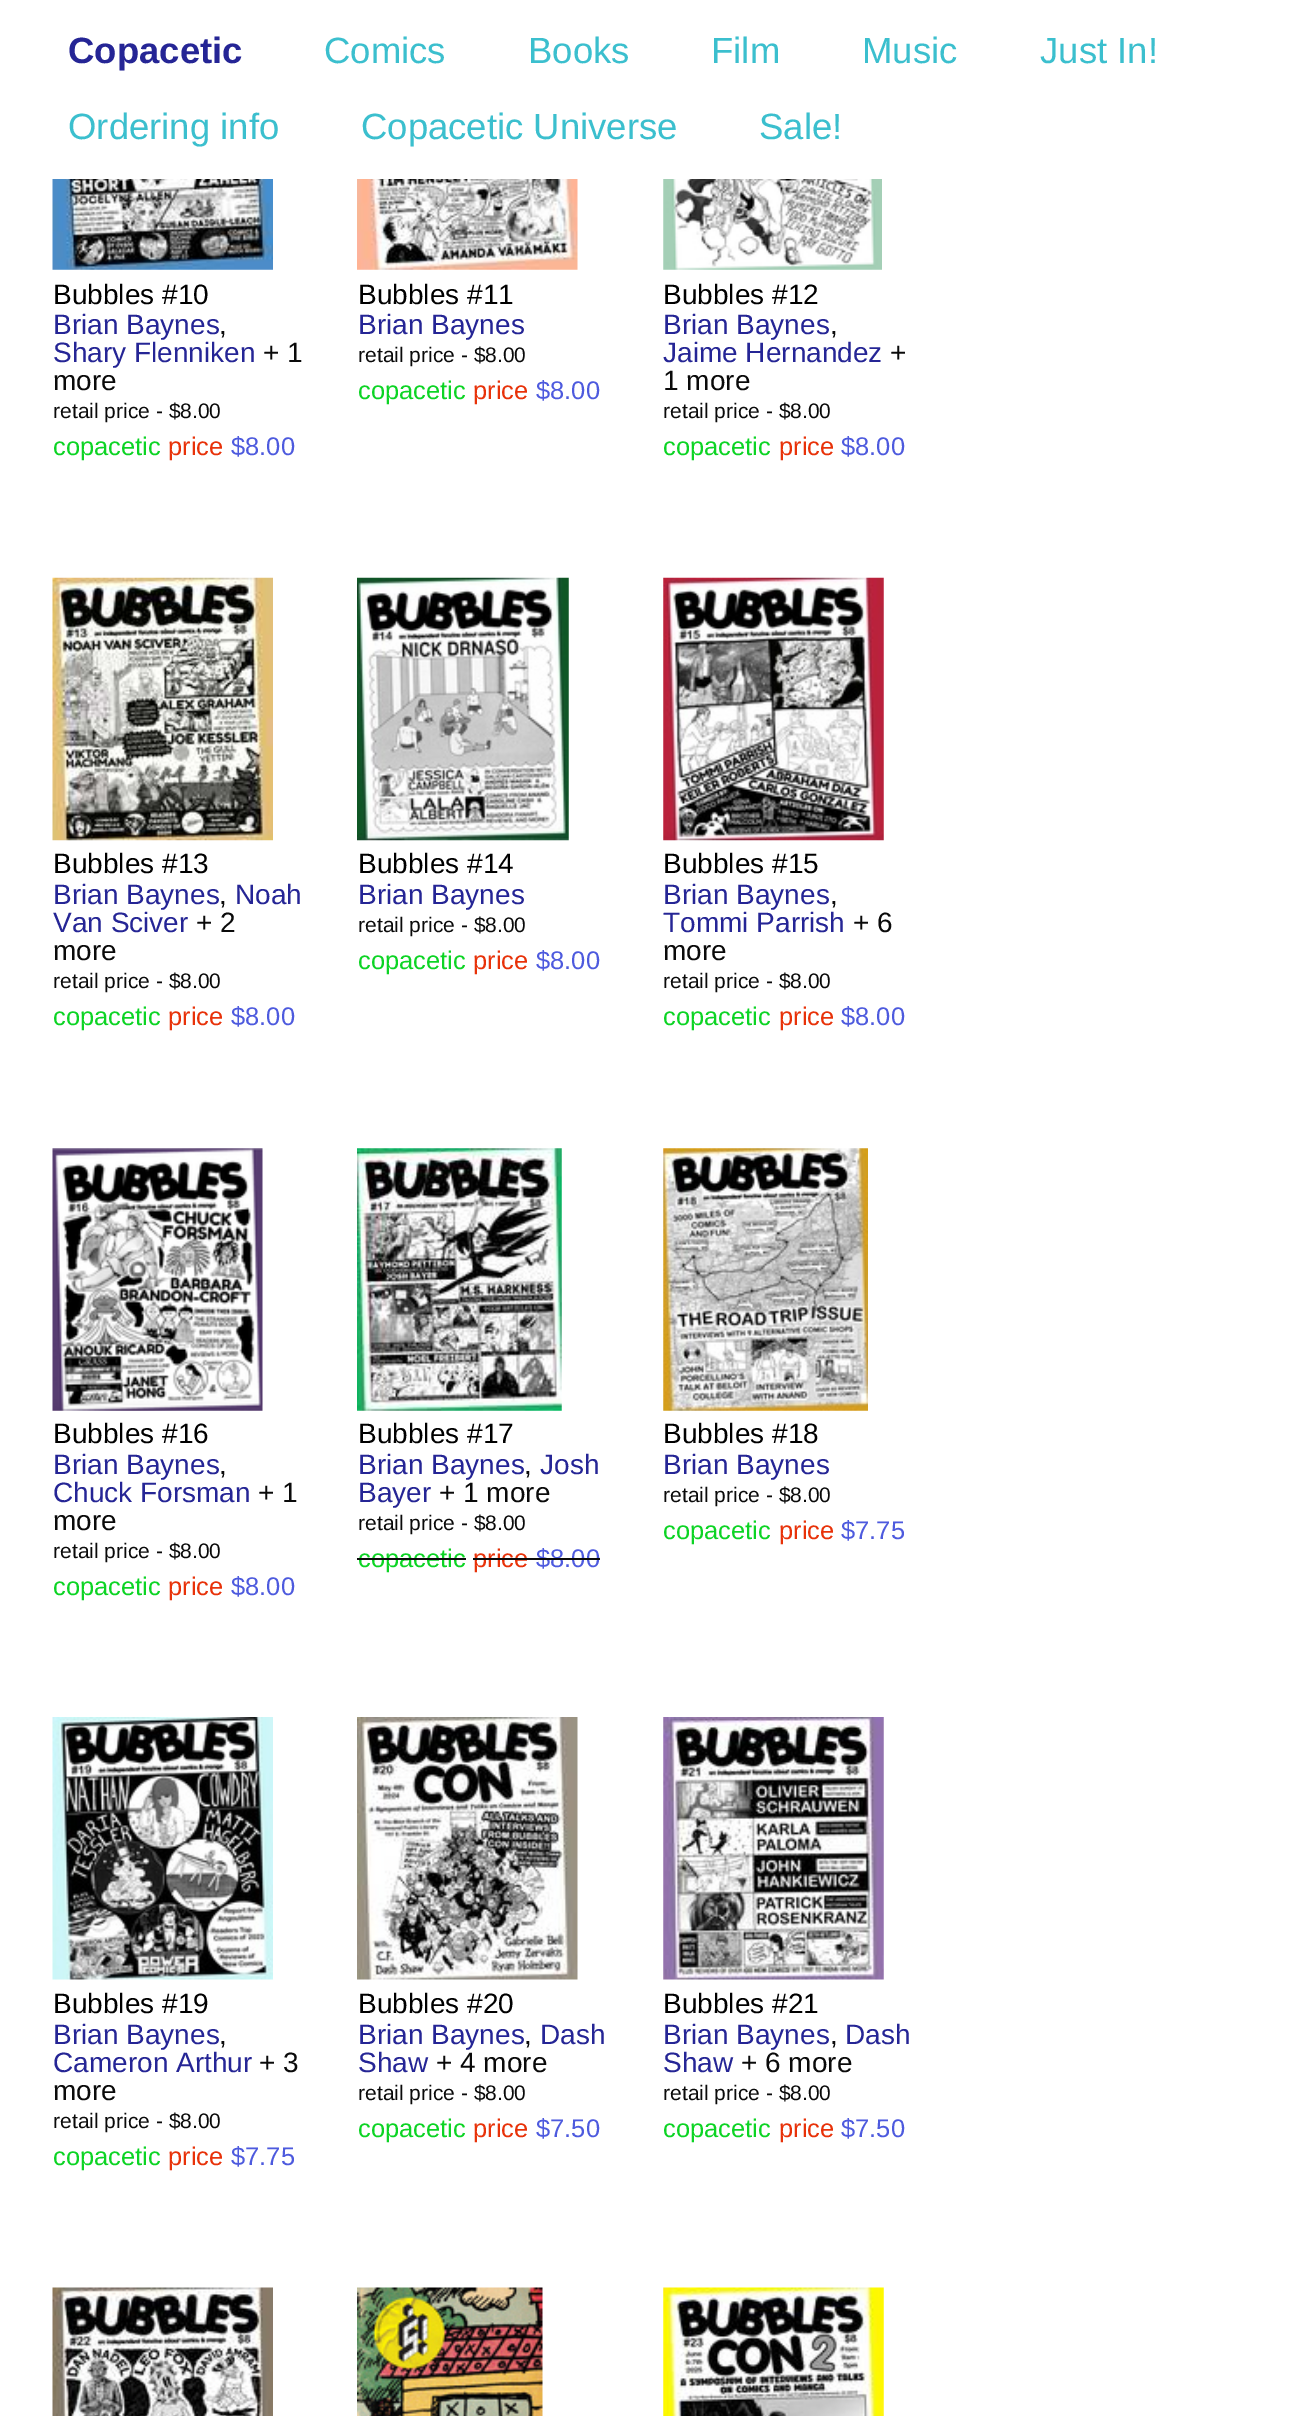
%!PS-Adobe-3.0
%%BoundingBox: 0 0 1309 2416
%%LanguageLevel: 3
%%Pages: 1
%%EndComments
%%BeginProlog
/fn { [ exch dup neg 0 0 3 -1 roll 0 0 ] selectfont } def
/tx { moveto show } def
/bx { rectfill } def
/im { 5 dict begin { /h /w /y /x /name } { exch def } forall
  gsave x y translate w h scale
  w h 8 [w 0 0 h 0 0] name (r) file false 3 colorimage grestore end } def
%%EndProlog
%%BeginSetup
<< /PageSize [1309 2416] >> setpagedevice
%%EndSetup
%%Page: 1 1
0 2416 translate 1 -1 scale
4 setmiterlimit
1 setgray
0 0 1309 2416 bx
/LiberationSans-Bold 36.5 fn
0.145 0.145 0.584 setrgbcolor
(Copacetic) 68 63 tx
/LiberationSans-Regular 36.5 fn
0.231 0.749 0.808 setrgbcolor
(Comics) 324 63 tx
(Books) 528 63 tx
(Film) 711 63 tx
(Music) 862 63 tx
(Just In!) 1040 63 tx
(Ordering info) 68 139 tx
(Copacetic Universe) 361 139 tx
(Sale!) 759 139 tx
(image0.raw) 52 179 221 91 im
/LiberationSans-Regular 28 fn
0 setgray
(Bubbles #10) 53 304 tx
0.145 0.145 0.584 setrgbcolor
(Brian Baynes) 53 334 tx
0.039 setgray
(,) 219 334 tx
0.145 0.145 0.584 setrgbcolor
(Shary Flenniken) 53 362 tx
0.039 setgray
(+ 1) 263 362 tx
(more) 53 390 tx
/LiberationSans-Regular 21 fn
(retail price - $8.00) 53 418 tx
/LiberationSans-Regular 25.5 fn
0.047 0.831 0.141 setrgbcolor
(copacetic) 53 455 tx
0.91 0.196 0.035 setrgbcolor
(price) 168 455 tx
0.302 0.353 0.871 setrgbcolor
($8.00) 231 455 tx
(image1.raw) 357 179 221 91 im
/LiberationSans-Regular 28 fn
0 setgray
(Bubbles #11) 358 304 tx
0.145 0.145 0.584 setrgbcolor
(Brian Baynes) 358 334 tx
/LiberationSans-Regular 21 fn
0.039 setgray
(retail price - $8.00) 358 362 tx
/LiberationSans-Regular 25.5 fn
0.047 0.831 0.141 setrgbcolor
(copacetic) 358 399 tx
0.91 0.196 0.035 setrgbcolor
(price) 473 399 tx
0.302 0.353 0.871 setrgbcolor
($8.00) 536 399 tx
(image2.raw) 663 179 219 91 im
/LiberationSans-Regular 28 fn
0 setgray
(Bubbles #12) 663 304 tx
0.145 0.145 0.584 setrgbcolor
(Brian Baynes) 663 334 tx
0.039 setgray
(,) 830 334 tx
0.145 0.145 0.584 setrgbcolor
(Jaime Hernandez) 663 362 tx
0.039 setgray
(+) 890 362 tx
(1 more) 663 390 tx
/LiberationSans-Regular 21 fn
(retail price - $8.00) 663 418 tx
/LiberationSans-Regular 25.5 fn
0.047 0.831 0.141 setrgbcolor
(copacetic) 663 455 tx
0.91 0.196 0.035 setrgbcolor
(price) 779 455 tx
0.302 0.353 0.871 setrgbcolor
($8.00) 841 455 tx
(image3.raw) 52 577 221 264 im
/LiberationSans-Regular 28 fn
0 setgray
(Bubbles #13) 53 873 tx
0.145 0.145 0.584 setrgbcolor
(Brian Baynes) 53 904 tx
0.039 setgray
(,) 219 904 tx
0.145 0.145 0.584 setrgbcolor
(Noah) 235 904 tx
(Van Sciver) 53 932 tx
0.039 setgray
(+ 2) 196 932 tx
(more) 53 960 tx
/LiberationSans-Regular 21 fn
(retail price - $8.00) 53 988 tx
/LiberationSans-Regular 25.5 fn
0.047 0.831 0.141 setrgbcolor
(copacetic) 53 1025 tx
0.91 0.196 0.035 setrgbcolor
(price) 168 1025 tx
0.302 0.353 0.871 setrgbcolor
($8.00) 231 1025 tx
(image4.raw) 357 577 212 264 im
/LiberationSans-Regular 28 fn
0 setgray
(Bubbles #14) 358 873 tx
0.145 0.145 0.584 setrgbcolor
(Brian Baynes) 358 904 tx
/LiberationSans-Regular 21 fn
0.039 setgray
(retail price - $8.00) 358 932 tx
/LiberationSans-Regular 25.5 fn
0.047 0.831 0.141 setrgbcolor
(copacetic) 358 969 tx
0.91 0.196 0.035 setrgbcolor
(price) 473 969 tx
0.302 0.353 0.871 setrgbcolor
($8.00) 536 969 tx
(image5.raw) 663 577 221 264 im
/LiberationSans-Regular 28 fn
0 setgray
(Bubbles #15) 663 873 tx
0.145 0.145 0.584 setrgbcolor
(Brian Baynes) 663 904 tx
0.039 setgray
(,) 830 904 tx
0.145 0.145 0.584 setrgbcolor
(Tommi Parrish) 663 932 tx
0.039 setgray
(+ 6) 853 932 tx
(more) 663 960 tx
/LiberationSans-Regular 21 fn
(retail price - $8.00) 663 988 tx
/LiberationSans-Regular 25.5 fn
0.047 0.831 0.141 setrgbcolor
(copacetic) 663 1025 tx
0.91 0.196 0.035 setrgbcolor
(price) 779 1025 tx
0.302 0.353 0.871 setrgbcolor
($8.00) 841 1025 tx
(image6.raw) 52 1148 211 263 im
/LiberationSans-Regular 28 fn
0 setgray
(Bubbles #16) 53 1443 tx
0.145 0.145 0.584 setrgbcolor
(Brian Baynes) 53 1474 tx
0.039 setgray
(,) 219 1474 tx
0.145 0.145 0.584 setrgbcolor
(Chuck Forsman) 53 1502 tx
0.039 setgray
(+ 1) 258 1502 tx
(more) 53 1530 tx
/LiberationSans-Regular 21 fn
(retail price - $8.00) 53 1558 tx
/LiberationSans-Regular 25.5 fn
0.047 0.831 0.141 setrgbcolor
(copacetic) 53 1595 tx
0.91 0.196 0.035 setrgbcolor
(price) 168 1595 tx
0.302 0.353 0.871 setrgbcolor
($8.00) 231 1595 tx
(image7.raw) 357 1148 205 263 im
/LiberationSans-Regular 28 fn
0 setgray
(Bubbles #17) 358 1443 tx
0.145 0.145 0.584 setrgbcolor
(Brian Baynes) 358 1474 tx
0.039 setgray
(,) 524 1474 tx
0.145 0.145 0.584 setrgbcolor
(Josh) 540 1474 tx
(Bayer) 358 1502 tx
0.039 setgray
(+ 1 more) 439 1502 tx
/LiberationSans-Regular 21 fn
(retail price - $8.00) 358 1530 tx
/LiberationSans-Regular 25.5 fn
0.047 0.831 0.141 setrgbcolor
(copacetic) 358 1567 tx
0.039 setgray
357 1558 109 2 bx
0.91 0.196 0.035 setrgbcolor
(price) 473 1567 tx
0.039 setgray
473 1558 56 2 bx
0.302 0.353 0.871 setrgbcolor
($8.00) 536 1567 tx
0.039 setgray
529 1558 71 2 bx
(image8.raw) 663 1148 205 263 im
/LiberationSans-Regular 28 fn
0 setgray
(Bubbles #18) 663 1443 tx
0.145 0.145 0.584 setrgbcolor
(Brian Baynes) 663 1474 tx
/LiberationSans-Regular 21 fn
0.039 setgray
(retail price - $8.00) 663 1502 tx
/LiberationSans-Regular 25.5 fn
0.047 0.831 0.141 setrgbcolor
(copacetic) 663 1539 tx
0.91 0.196 0.035 setrgbcolor
(price) 779 1539 tx
0.302 0.353 0.871 setrgbcolor
($7.75) 841 1539 tx
(image9.raw) 52 1717 221 263 im
/LiberationSans-Regular 28 fn
0 setgray
(Bubbles #19) 53 2013 tx
0.145 0.145 0.584 setrgbcolor
(Brian Baynes) 53 2044 tx
0.039 setgray
(,) 219 2044 tx
0.145 0.145 0.584 setrgbcolor
(Cameron Arthur) 53 2072 tx
0.039 setgray
(+ 3) 259 2072 tx
(more) 53 2100 tx
/LiberationSans-Regular 21 fn
(retail price - $8.00) 53 2128 tx
/LiberationSans-Regular 25.5 fn
0.047 0.831 0.141 setrgbcolor
(copacetic) 53 2165 tx
0.91 0.196 0.035 setrgbcolor
(price) 168 2165 tx
0.302 0.353 0.871 setrgbcolor
($7.75) 231 2165 tx
(image10.raw) 357 1717 221 263 im
/LiberationSans-Regular 28 fn
0 setgray
(Bubbles #20) 358 2013 tx
0.145 0.145 0.584 setrgbcolor
(Brian Baynes) 358 2044 tx
0.039 setgray
(,) 524 2044 tx
0.145 0.145 0.584 setrgbcolor
(Dash) 540 2044 tx
(Shaw) 358 2072 tx
0.039 setgray
(+ 4 more) 436 2072 tx
/LiberationSans-Regular 21 fn
(retail price - $8.00) 358 2100 tx
/LiberationSans-Regular 25.5 fn
0.047 0.831 0.141 setrgbcolor
(copacetic) 358 2137 tx
0.91 0.196 0.035 setrgbcolor
(price) 473 2137 tx
0.302 0.353 0.871 setrgbcolor
($7.50) 536 2137 tx
(image11.raw) 663 1717 221 263 im
/LiberationSans-Regular 28 fn
0 setgray
(Bubbles #21) 663 2013 tx
0.145 0.145 0.584 setrgbcolor
(Brian Baynes) 663 2044 tx
0.039 setgray
(,) 830 2044 tx
0.145 0.145 0.584 setrgbcolor
(Dash) 845 2044 tx
(Shaw) 663 2072 tx
0.039 setgray
(+ 6 more) 741 2072 tx
/LiberationSans-Regular 21 fn
(retail price - $8.00) 663 2100 tx
/LiberationSans-Regular 25.5 fn
0.047 0.831 0.141 setrgbcolor
(copacetic) 663 2137 tx
0.91 0.196 0.035 setrgbcolor
(price) 779 2137 tx
0.302 0.353 0.871 setrgbcolor
($7.50) 841 2137 tx
(image12.raw) 52 2287 221 129 im
(image13.raw) 357 2287 186 129 im
(image14.raw) 663 2287 221 129 im
showpage
%%EOF
